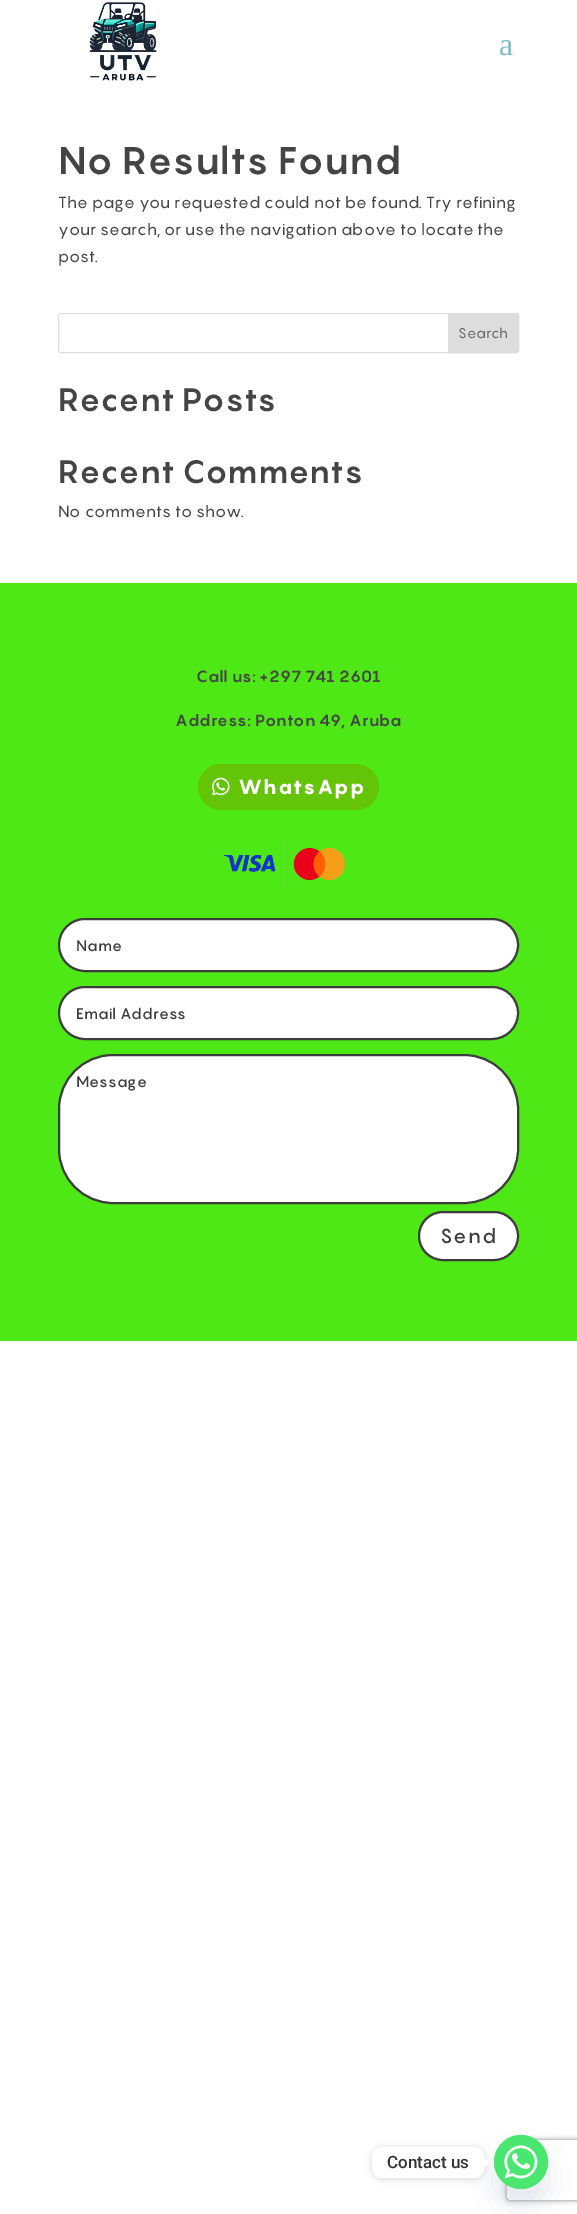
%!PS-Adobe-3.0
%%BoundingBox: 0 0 577 2214
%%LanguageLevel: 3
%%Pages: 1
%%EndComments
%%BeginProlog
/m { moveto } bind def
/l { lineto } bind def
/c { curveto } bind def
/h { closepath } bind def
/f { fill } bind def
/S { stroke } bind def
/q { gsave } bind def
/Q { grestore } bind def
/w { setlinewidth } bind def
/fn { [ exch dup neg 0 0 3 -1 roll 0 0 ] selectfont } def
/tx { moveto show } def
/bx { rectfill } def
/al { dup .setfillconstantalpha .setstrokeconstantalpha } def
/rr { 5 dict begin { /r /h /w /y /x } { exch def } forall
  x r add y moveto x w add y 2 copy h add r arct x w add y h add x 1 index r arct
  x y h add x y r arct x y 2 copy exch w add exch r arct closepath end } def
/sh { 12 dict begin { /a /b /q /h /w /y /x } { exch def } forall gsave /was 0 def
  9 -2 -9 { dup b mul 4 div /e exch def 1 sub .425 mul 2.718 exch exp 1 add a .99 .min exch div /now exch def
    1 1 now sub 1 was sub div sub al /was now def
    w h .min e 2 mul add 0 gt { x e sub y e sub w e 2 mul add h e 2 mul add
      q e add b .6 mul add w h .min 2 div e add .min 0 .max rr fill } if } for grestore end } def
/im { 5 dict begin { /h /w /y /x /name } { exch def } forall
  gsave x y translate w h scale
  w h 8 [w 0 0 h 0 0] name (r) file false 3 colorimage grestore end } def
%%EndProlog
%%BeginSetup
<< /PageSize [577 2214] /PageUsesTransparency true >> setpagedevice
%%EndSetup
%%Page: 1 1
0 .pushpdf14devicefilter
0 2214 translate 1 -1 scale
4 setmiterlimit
1 setgray
0 0 577 2214 bx
(image0.raw) 89 2 68 79 im
/LiberationSerif-Regular 32 fn
0.494 0.745 0.773 setrgbcolor
(a) 499 55 tx
/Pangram-Bold 38 fn
0.267 setgray
(No Results Found) 58 174 tx
/Pangram-Regular 16 fn
(The page you requested could not be found. Try refining) 58 208 tx
(your search, or use the navigation above to locate the) 58 235 tx
(post.) 58 262 tx
0.867 setgray
58.5 313.5 460 39 2.5 rr S
448.5 313.5 m 516 313.5 l 517.5 313.5 518.5 314.5 518.5 316 c 518.5 350 l 518.5 351.5 517.5 352.5 516 352.5 c 448.5 352.5 l h q f Q
S
/Pangram-Regular 14 fn
0.4 setgray
(Search) 458 338 tx
/Pangram-Bold 32 fn
0.267 setgray
(Recent Posts) 58 411 tx
(Recent Comments) 58 483 tx
/Pangram-Regular 16 fn
(No comments to show.) 58 517 tx
0.302 0.91 0.082 setrgbcolor
0 583 577 758 bx
/Pangram-Bold 16 fn
0.267 setgray
(Call us: +297 741 2601) 196 682 tx
(Address: Ponton 49, Aruba) 175 726 tx
0.388 0.769 0.031 setrgbcolor
198 764 181 46 23 rr f
(image1.raw) 212 777 18 19 im
/Pangram-ExtraBold 20 fn
1 setgray
238 794 m 1 0 (WhatsApp) ashow
(image2.raw) 224 841 122 45 im
59 919 459 52 26 rr q f Q
0.235 setgray
2 w
S
/Pangram-Medium 15 fn
(Name) 76 951 tx
1 setgray
59 987 459 52 26 rr q f Q
0.235 setgray
S
(Email Address) 76 1019 tx
1 setgray
59 1055 459 148 54 rr q f Q
0.235 setgray
S
(Message) 76 1087 tx
1 setgray
419 1212 99 48 24 rr q f Q
0.235 setgray
S
/Pangram-Medium 20 fn
440 1243 m 1 0 (Send) ashow
0.286 0.408 0.494 setrgbcolor
494 2151 54 54 27 12 0.16 sh
q
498 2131 m 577 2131 l 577 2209 l 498 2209 l h 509 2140 m 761 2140 l 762 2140 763 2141 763 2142 c 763 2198 l 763 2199 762 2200 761 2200 c 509 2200 l 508 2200 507 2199 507 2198 c 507 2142 l 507 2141 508 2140 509 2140 c h eoclip newpath
0.502 setgray
507 2140 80 60 2 2.5 1 sh
Q
(image3.raw) 494 2135 54 54 im
0 setgray
372 2148 112 31 10 4 0.15 sh
1 setgray
372 2147 112 31 10 rr f
/Roboto-Medium 17 fn
0.2 setgray
(Contact us) 387 2168 tx
1 setgray
484 2167.5 m 484 2157.5 l 489 2162.5 l h f
.poppdf14devicefilter showpage
%%EOF
